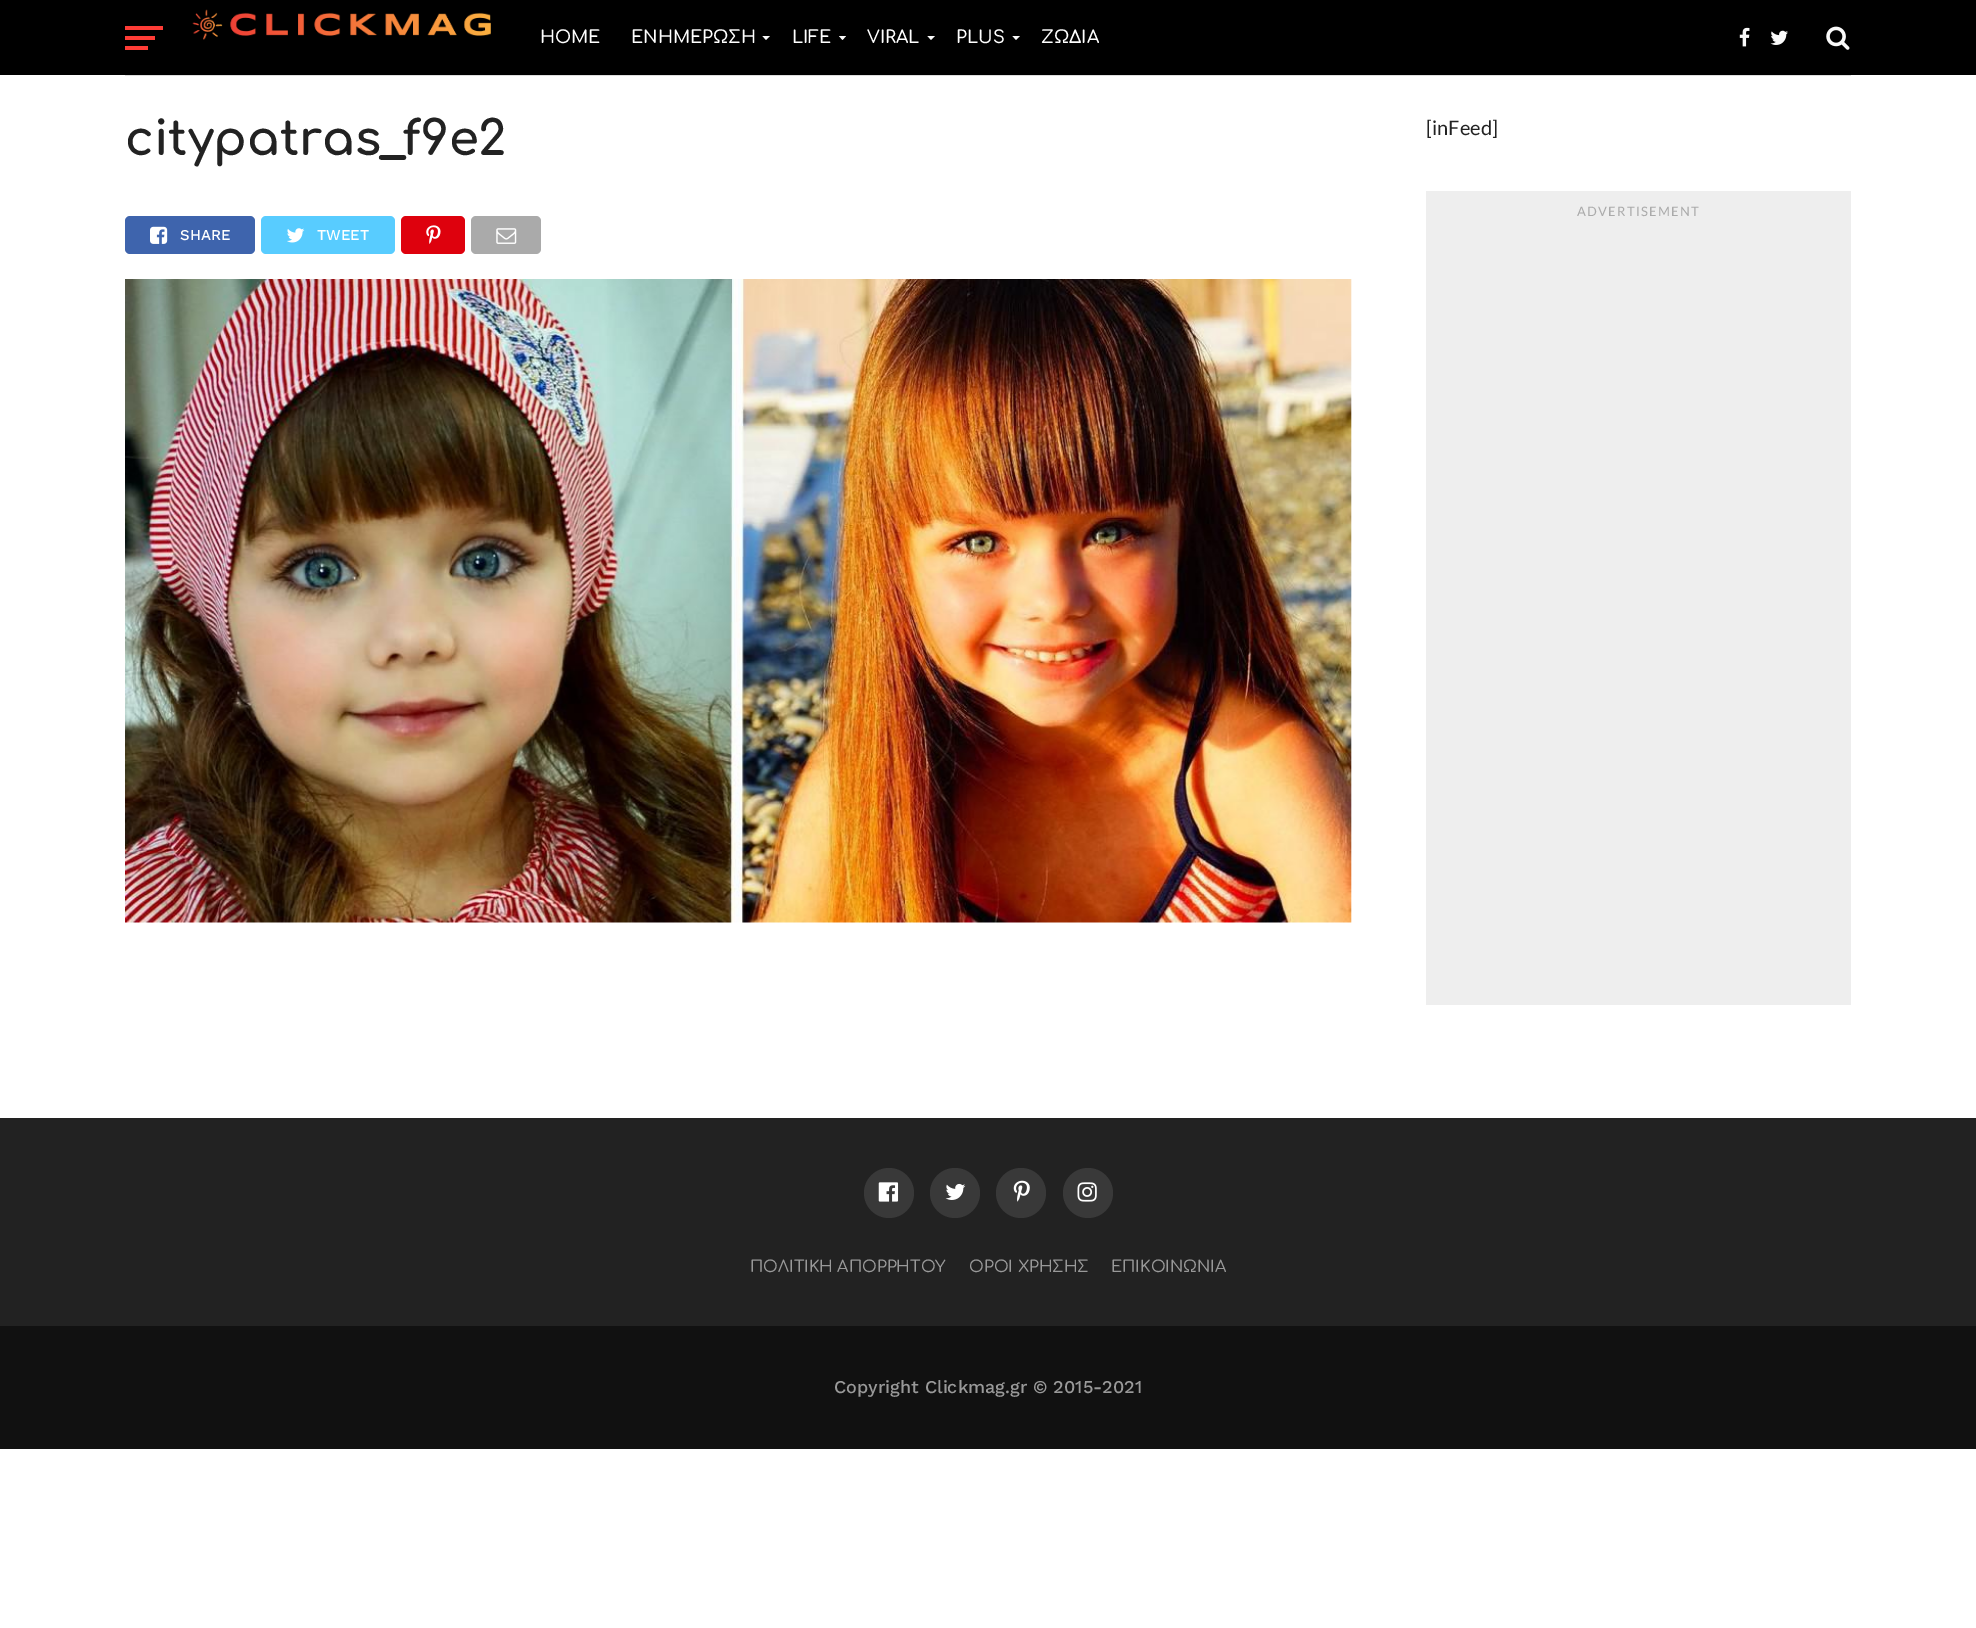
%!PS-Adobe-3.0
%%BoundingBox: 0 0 1976 1628
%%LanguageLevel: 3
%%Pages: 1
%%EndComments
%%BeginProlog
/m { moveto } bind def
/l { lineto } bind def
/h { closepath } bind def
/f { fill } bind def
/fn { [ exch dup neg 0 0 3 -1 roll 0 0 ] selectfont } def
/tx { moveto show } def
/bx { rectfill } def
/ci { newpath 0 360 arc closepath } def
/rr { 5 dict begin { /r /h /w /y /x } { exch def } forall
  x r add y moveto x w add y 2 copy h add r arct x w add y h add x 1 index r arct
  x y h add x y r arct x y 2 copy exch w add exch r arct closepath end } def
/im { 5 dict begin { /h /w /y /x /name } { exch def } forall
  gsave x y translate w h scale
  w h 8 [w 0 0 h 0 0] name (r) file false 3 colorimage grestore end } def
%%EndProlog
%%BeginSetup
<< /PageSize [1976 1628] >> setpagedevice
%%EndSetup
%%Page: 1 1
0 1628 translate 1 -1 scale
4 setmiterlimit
1 setgray
0 0 1976 1628 bx
0 setgray
0 0 1976 75 bx
1 0.235 0.212 setrgbcolor
125 26 38 4 bx
125 36 30 4 bx
125 46 23 4 bx
(image0.raw) 192 9 299 31 im
/Comfortaa-SemiBold 17.5 fn
1 setgray
(HOME) 540 43 tx
(ΕΝΗΜΕΡΩΣΗ) 631 43 tx
0.98 setgray
762.5 36 m 770 36 l 766 40 l h f
1 setgray
(LIFE) 792 43 tx
0.98 setgray
839 36 m 846 36 l 842.5 40 l h f
1 setgray
(VIRAL) 867 43 tx
0.98 setgray
927.5 36 m 935 36 l 931 40 l h f
1 setgray
(PLUS) 956 43 tx
0.98 setgray
1012.5 36 m 1020 36 l 1016 40 l h f
1 setgray
(ΖΩΔΙΑ) 1041 43 tx
(image1.raw) 1739 27 11 20 im
(image2.raw) 1770 30 18 15 im
(image3.raw) 1826 26 24 24 im
0.867 setgray
125 75 1726 1 bx
/Comfortaa-Bold 48 fn
0.133 setgray
(citypatras_f9e2) 125 155 tx
0.243 0.392 0.678 setrgbcolor
125 216 130 38 5 rr f
(image4.raw) 150 226 18 18 im
/WorkSans-Medium 15 fn
1 setgray
(SHARE) 180 240 tx
0.345 0.8 1 setrgbcolor
261 216 134 38 5 rr f
(image5.raw) 287 228 18 15 im
1 setgray
(TWEET) 317 240 tx
0.871 0.004 0.051 setrgbcolor
401 216 64 38 5 rr f
(image6.raw) 426 225 15 19 im
0.667 setgray
471 216 70 38 5 rr f
(image7.raw) 496 228 21 16 im
(image8.raw) 125 279 1227 644 im
/Lato-Regular 20 fn
0.133 setgray
([inFeed]) 1426 135 tx
0.933 setgray
1426 191 425 814 bx
/Lato-Regular 13 fn
0.667 setgray
1577 216 m 1.25 0 (ADVERTISEMENT) ashow
0.133 setgray
0 1118 1976 208 bx
0.224 setgray
889 1193 25 ci f
(image9.raw) 878 1182 21 20 im
955 1193 25 ci f
(image10.raw) 945 1183 21 17 im
1021 1193 25 ci f
(image11.raw) 1013 1180 17 22 im
1088 1193 25 ci f
(image12.raw) 1077 1182 20 20 im
/Comfortaa-Medium 16 fn
0.6 setgray
(ΠΟΛΙΤΙΚΗ ΑΠΟΡΡΗΤΟΥ) 750 1272 tx
(ΟΡΟΙ ΧΡΗΣΗΣ) 969 1272 tx
(ΕΠΙΚΟΙΝΩΝΙΑ) 1111 1272 tx
0.067 setgray
0 1326 1976 123 bx
/WorkSans-Medium 18 fn
0.6 setgray
(Copyright Clickmag.gr © 2015-2021) 834 1393 tx
showpage
%%EOF
